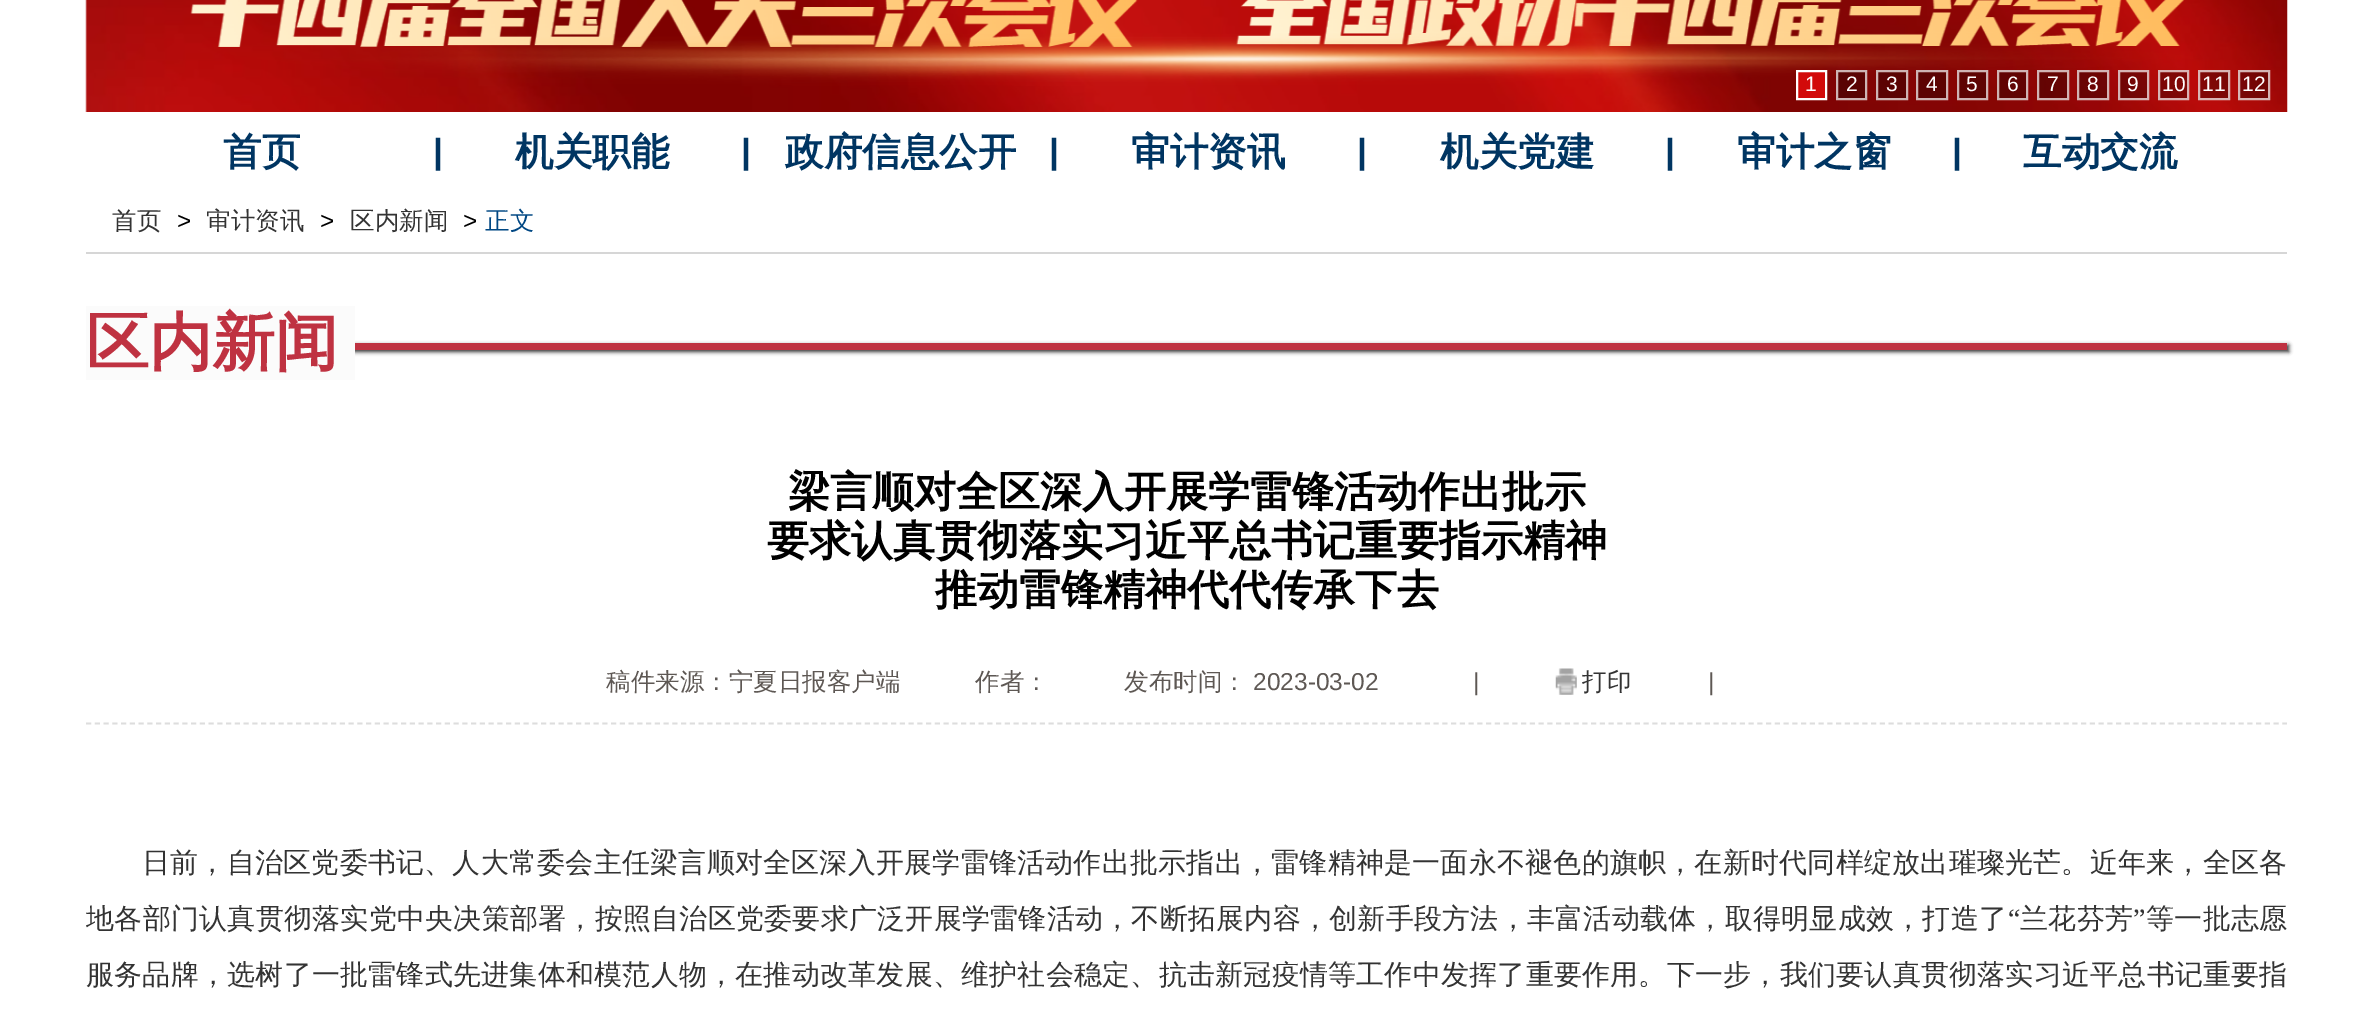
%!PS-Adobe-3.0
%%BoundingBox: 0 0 2373 1015
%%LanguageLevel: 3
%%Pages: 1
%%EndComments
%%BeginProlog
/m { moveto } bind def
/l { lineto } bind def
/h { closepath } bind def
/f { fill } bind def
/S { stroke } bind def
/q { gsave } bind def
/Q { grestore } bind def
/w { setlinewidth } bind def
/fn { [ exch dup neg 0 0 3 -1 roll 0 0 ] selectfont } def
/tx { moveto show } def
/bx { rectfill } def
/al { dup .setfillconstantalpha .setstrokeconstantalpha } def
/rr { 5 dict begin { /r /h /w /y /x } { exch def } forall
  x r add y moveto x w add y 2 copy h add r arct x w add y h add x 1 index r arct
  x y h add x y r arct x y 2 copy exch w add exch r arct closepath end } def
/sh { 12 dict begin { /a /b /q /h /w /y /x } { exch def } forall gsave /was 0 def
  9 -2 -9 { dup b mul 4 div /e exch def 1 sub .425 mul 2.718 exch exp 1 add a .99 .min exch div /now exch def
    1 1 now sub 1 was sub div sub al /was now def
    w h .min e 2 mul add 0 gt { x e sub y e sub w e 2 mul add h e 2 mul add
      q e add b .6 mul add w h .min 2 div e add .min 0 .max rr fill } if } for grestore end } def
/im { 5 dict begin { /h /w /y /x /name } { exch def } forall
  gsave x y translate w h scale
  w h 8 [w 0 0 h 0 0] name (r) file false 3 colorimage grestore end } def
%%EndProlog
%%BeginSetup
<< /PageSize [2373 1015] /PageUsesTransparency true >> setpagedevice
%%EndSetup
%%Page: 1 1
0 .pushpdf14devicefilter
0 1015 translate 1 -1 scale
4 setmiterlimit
1 setgray
0 0 2373 1015 bx
(image0.raw) 85 0 2203 112 im
0.824 0.039 0.039 setrgbcolor
1797 71 m 1826 71 l 1826 99 l 1797 99 l h q f Q
1 setgray
2 w
S
/LiberationSans-Regular 21 fn
(1) 1805 91 tx
0.3 al
0 setgray
1836 70 31 30 bx
0.7 al
1 setgray
1837 71 29 28 rectstroke
1 al
(2) 1846 91 tx
0.3 al
0 setgray
1877 71 m 1907 71 l 1907 99 l 1877 99 l h f
1 al
0.808 0.706 0.702 setrgbcolor
1877 71 m 1907 71 l 1907 99 l 1877 99 l h S
1 setgray
(3) 1886 91 tx
0.3 al
0 setgray
1916 70 32 30 bx
0.7 al
1 setgray
1917 71 30 28 rectstroke
1 al
(4) 1926 91 tx
0.3 al
0 setgray
1957 70 31 30 bx
0.7 al
1 setgray
1958 71 29 28 rectstroke
1 al
(5) 1966 91 tx
0.3 al
0 setgray
1997 70 31 30 bx
0.7 al
1 setgray
1998 71 29 28 rectstroke
1 al
(6) 2007 91 tx
0.3 al
0 setgray
2037 70 32 30 bx
0.7 al
1 setgray
2038 71 30 28 rectstroke
1 al
(7) 2047 91 tx
0.3 al
0 setgray
2077 70 32 30 bx
0.7 al
1 setgray
2078 71 30 28 rectstroke
1 al
(8) 2087 91 tx
0.3 al
0 setgray
2118 70 31 30 bx
0.7 al
1 setgray
2119 71 29 28 rectstroke
1 al
(9) 2127 91 tx
0.3 al
0 setgray
2158 70 31 30 bx
0.7 al
1 setgray
2159 71 29 28 rectstroke
1 al
(10) 2162 91 tx
0.3 al
0 setgray
2198 70 32 30 bx
0.7 al
1 setgray
2199 71 30 28 rectstroke
1 al
(11) 2202 91 tx
0.3 al
0 setgray
2238 70 32 30 bx
0.7 al
1 setgray
2239 71 30 28 rectstroke
1 al
(12) 2242 91 tx
/WenQuanYiZenHei-Bold 38.5 fn
0 0.208 0.384 setrgbcolor
(首页) 223 165 tx
/LiberationSans-Bold 35 fn
(|) 433 163 tx
/WenQuanYiZenHei-Bold 38.5 fn
(机关职能) 515 165 tx
/LiberationSans-Bold 35 fn
(|) 741 163 tx
/WenQuanYiZenHei-Bold 38.5 fn
(政府信息公开) 785 165 tx
/LiberationSans-Bold 35 fn
(|) 1049 163 tx
/WenQuanYiZenHei-Bold 38.5 fn
(审计资讯) 1131 165 tx
/LiberationSans-Bold 35 fn
(|) 1357 163 tx
/WenQuanYiZenHei-Bold 38.5 fn
(机关党建) 1440 165 tx
/LiberationSans-Bold 35 fn
(|) 1665 163 tx
/WenQuanYiZenHei-Bold 38.5 fn
(审计之窗) 1737 165 tx
/LiberationSans-Bold 35 fn
(|) 1952 163 tx
/WenQuanYiZenHei-Bold 38.5 fn
(互动交流) 2023 165 tx
0.839 setgray
86 252 2201 2 bx
/WenQuanYiZenHei-Medium 24.5 fn
0.2 setgray
(首页) 112 229 tx
/LiberationSans-Regular 24.5 fn
0 setgray
(>) 177 229 tx
/WenQuanYiZenHei-Medium 24.5 fn
0.2 setgray
(审计资讯) 206 229 tx
/LiberationSans-Regular 24.5 fn
0 setgray
(>) 320 229 tx
/WenQuanYiZenHei-Medium 24.5 fn
0.2 setgray
(区内新闻) 350 229 tx
/LiberationSans-Regular 24.5 fn
0 setgray
(>) 463 229 tx
/WenQuanYiZenHei-Medium 24.5 fn
0 0.278 0.514 setrgbcolor
(正文) 485 229 tx
0.2 setgray
198 345 2091 7 0 2 1 sh
0.984 setgray
86 306 269 74 bx
/WenQuanYiZenHei-Bold 63 fn
0.749 0.196 0.255 setrgbcolor
(区内新闻) 86 364 tx
355 343 1932 7 bx
/WenQuanYiZenHei-Bold 42 fn
0 setgray
(梁言顺对全区深入开展学雷锋活动作出批示) 788 506 tx
(要求认真贯彻落实习近平总书记重要指示精神) 767 555 tx
(推动雷锋精神代代传承下去) 935 604 tx
0.867 setgray
1.8 w
[5.25 3.5] 0 setdash
86 723.5 m 2287 723.5 l S
/WenQuanYiZenHei-Medium 24.5 fn
0.369 0.345 0.329 setrgbcolor
(稿件来源：宁夏日报客户端) 606 690 tx
(作者：) 975 690 tx
(发布时间：) 1124 690 tx
/LiberationSans-Regular 24.5 fn
(2023-03-02) 1253 690 tx
(|) 1473 690 tx
(image1.raw) 1555 668 22 27 im
/WenQuanYiZenHei-Medium 24.5 fn
0.2 setgray
(打印) 1582 690 tx
/LiberationSans-Regular 24.5 fn
0.369 0.345 0.329 setrgbcolor
(|) 1708 690 tx
/WenQuanYiZenHei-Medium 28 fn
0.2 setgray
142 872 m 0.23 0 (日前，自治区党委书记、人大常委会主任梁言顺对全区深入开展学雷锋活动作出批示指出，雷锋精神是一面永不褪色的旗帜，在新时代同样绽放出璀璨光芒。近年来，全区各) ashow
86 928 m 0.25 0 (地各部门认真贯彻落实党中央决策部署，按照自治区党委要求广泛开展学雷锋活动，不断拓展内容，创新手段方法，丰富活动载体，取得明显成效，打造了) ashow
/LiberationSerif-Regular 28 fn
2008 928 m 0.25 0 (“) ashow
/WenQuanYiZenHei-Medium 28 fn
2020 928 m 0.25 0 (兰花芬芳) ashow
/LiberationSerif-Regular 28 fn
2133 928 m 0.25 0 (”) ashow
/WenQuanYiZenHei-Medium 28 fn
2146 928 m 0.25 0 (等一批志愿) ashow
86 984 m 0.23 0 (服务品牌，选树了一批雷锋式先进集体和模范人物，在推动改革发展、维护社会稳定、抗击新冠疫情等工作中发挥了重要作用。下一步，我们要认真贯彻落实习近平总书记重要指) ashow
.poppdf14devicefilter showpage
%%EOF
